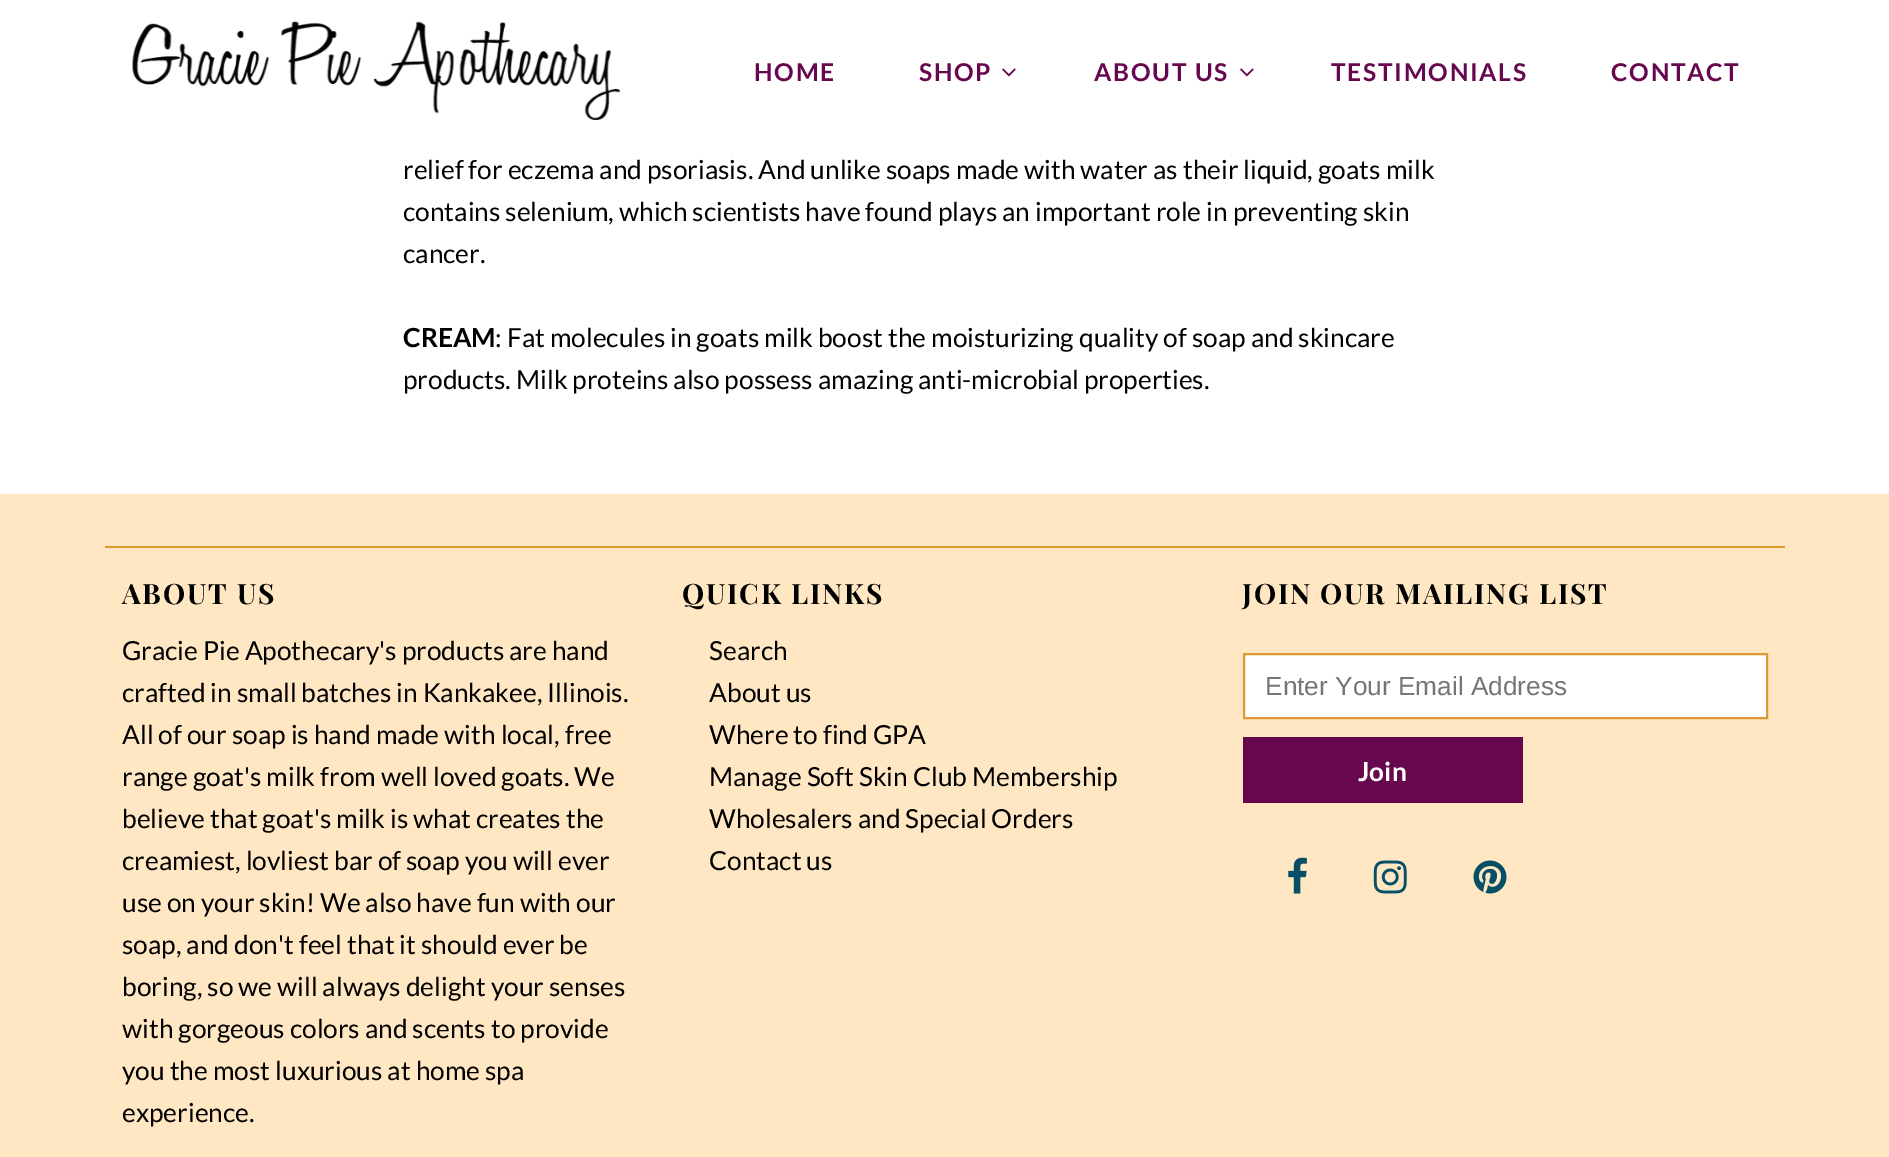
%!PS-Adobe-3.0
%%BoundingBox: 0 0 1889 1157
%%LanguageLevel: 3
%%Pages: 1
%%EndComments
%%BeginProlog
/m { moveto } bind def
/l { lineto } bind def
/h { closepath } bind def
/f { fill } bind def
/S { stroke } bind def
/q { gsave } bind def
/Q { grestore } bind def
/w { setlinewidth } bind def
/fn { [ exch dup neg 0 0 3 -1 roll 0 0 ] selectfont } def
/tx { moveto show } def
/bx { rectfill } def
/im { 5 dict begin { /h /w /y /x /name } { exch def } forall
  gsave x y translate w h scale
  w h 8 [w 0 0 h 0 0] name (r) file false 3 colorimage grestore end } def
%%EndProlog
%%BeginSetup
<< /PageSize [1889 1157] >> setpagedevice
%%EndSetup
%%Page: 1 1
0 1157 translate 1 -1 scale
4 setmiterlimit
1 setgray
0 0 1889 1157 bx
(image0.raw) 132 21 488 99 im
/Lato-Bold 24.5 fn
0.404 0.027 0.306 setrgbcolor
754 81 m 1.75 0 (HOME) ashow
919 81 m 1.75 0 (SHOP) ashow
(image1.raw) 1002 68 14 9 im
1094 81 m 1.75 0 (ABOUT US) ashow
(image1.raw) 1240 68 14 9 im
1331 81 m 1.75 0 (TESTIMONIALS) ashow
1611 81 m 1.75 0 (CONTACT) ashow
/Lato-Regular 26.25 fn
0 setgray
(relief for eczema and psoriasis. And unlike soaps made with water as their liquid, goats milk) 403 179 tx
(contains selenium, which scientists have found plays an important role in preventing skin) 403 221 tx
(cancer.) 403 263 tx
/Lato-Bold 26.25 fn
(CREAM) 403 347 tx
/Lato-Regular 26.25 fn
(: Fat molecules in goats milk boost the moisturizing quality of soap and skincare) 495 347 tx
(products. Milk proteins also possess amazing anti-microbial properties.) 403 389 tx
1 0.906 0.765 setrgbcolor
0 494 1889 663 bx
0.867 0.6 0.2 setrgbcolor
105 546 1680 2 bx
/PlayfairDisplay-Bold 28 fn
0 setgray
122 604 m 1.75 0 (ABOUT US) ashow
/Lato-Regular 26.25 fn
(Gracie Pie Apothecary's products are hand) 122 660 tx
(crafted in small batches in Kankakee, Illinois.) 122 702 tx
(All of our soap is hand made with local, free) 122 744 tx
(range goat's milk from well loved goats. We) 122 786 tx
(believe that goat's milk is what creates the) 122 828 tx
(creamiest, lovliest bar of soap you will ever) 122 870 tx
(use on your skin! We also have fun with our) 122 912 tx
(soap, and don't feel that it should ever be) 122 954 tx
(boring, so we will always delight your senses) 122 996 tx
(with gorgeous colors and scents to provide) 122 1038 tx
(you the most luxurious at home spa) 122 1080 tx
(experience.) 122 1122 tx
/PlayfairDisplay-Bold 28 fn
682 604 m 1.75 0 (QUICK LINKS) ashow
/Lato-Regular 26.25 fn
(Search) 709 660 tx
(About us) 709 702 tx
(Where to find GPA) 709 744 tx
(Manage Soft Skin Club Membership) 709 786 tx
(Wholesalers and Special Orders) 709 828 tx
(Contact us) 709 870 tx
/PlayfairDisplay-Bold 28 fn
1242 604 m 1.75 0 (JOIN OUR MAILING LIST) ashow
1 setgray
1244 654 m 1767 654 l 1767 718 l 1244 718 l h q f Q
0.867 0.6 0.2 setrgbcolor
2 w
S
/LiberationSans-Regular 26.25 fn
0.459 setgray
(Enter Your Email Address) 1265 695 tx
0.404 0.027 0.306 setrgbcolor
1243 737 280 66 bx
/Lato-Bold 26.25 fn
1 setgray
(Join) 1358 781 tx
(image2.raw) 1288 857 19 37 im
(image3.raw) 1373 860 34 34 im
(image4.raw) 1473 860 34 34 im
showpage
%%EOF
